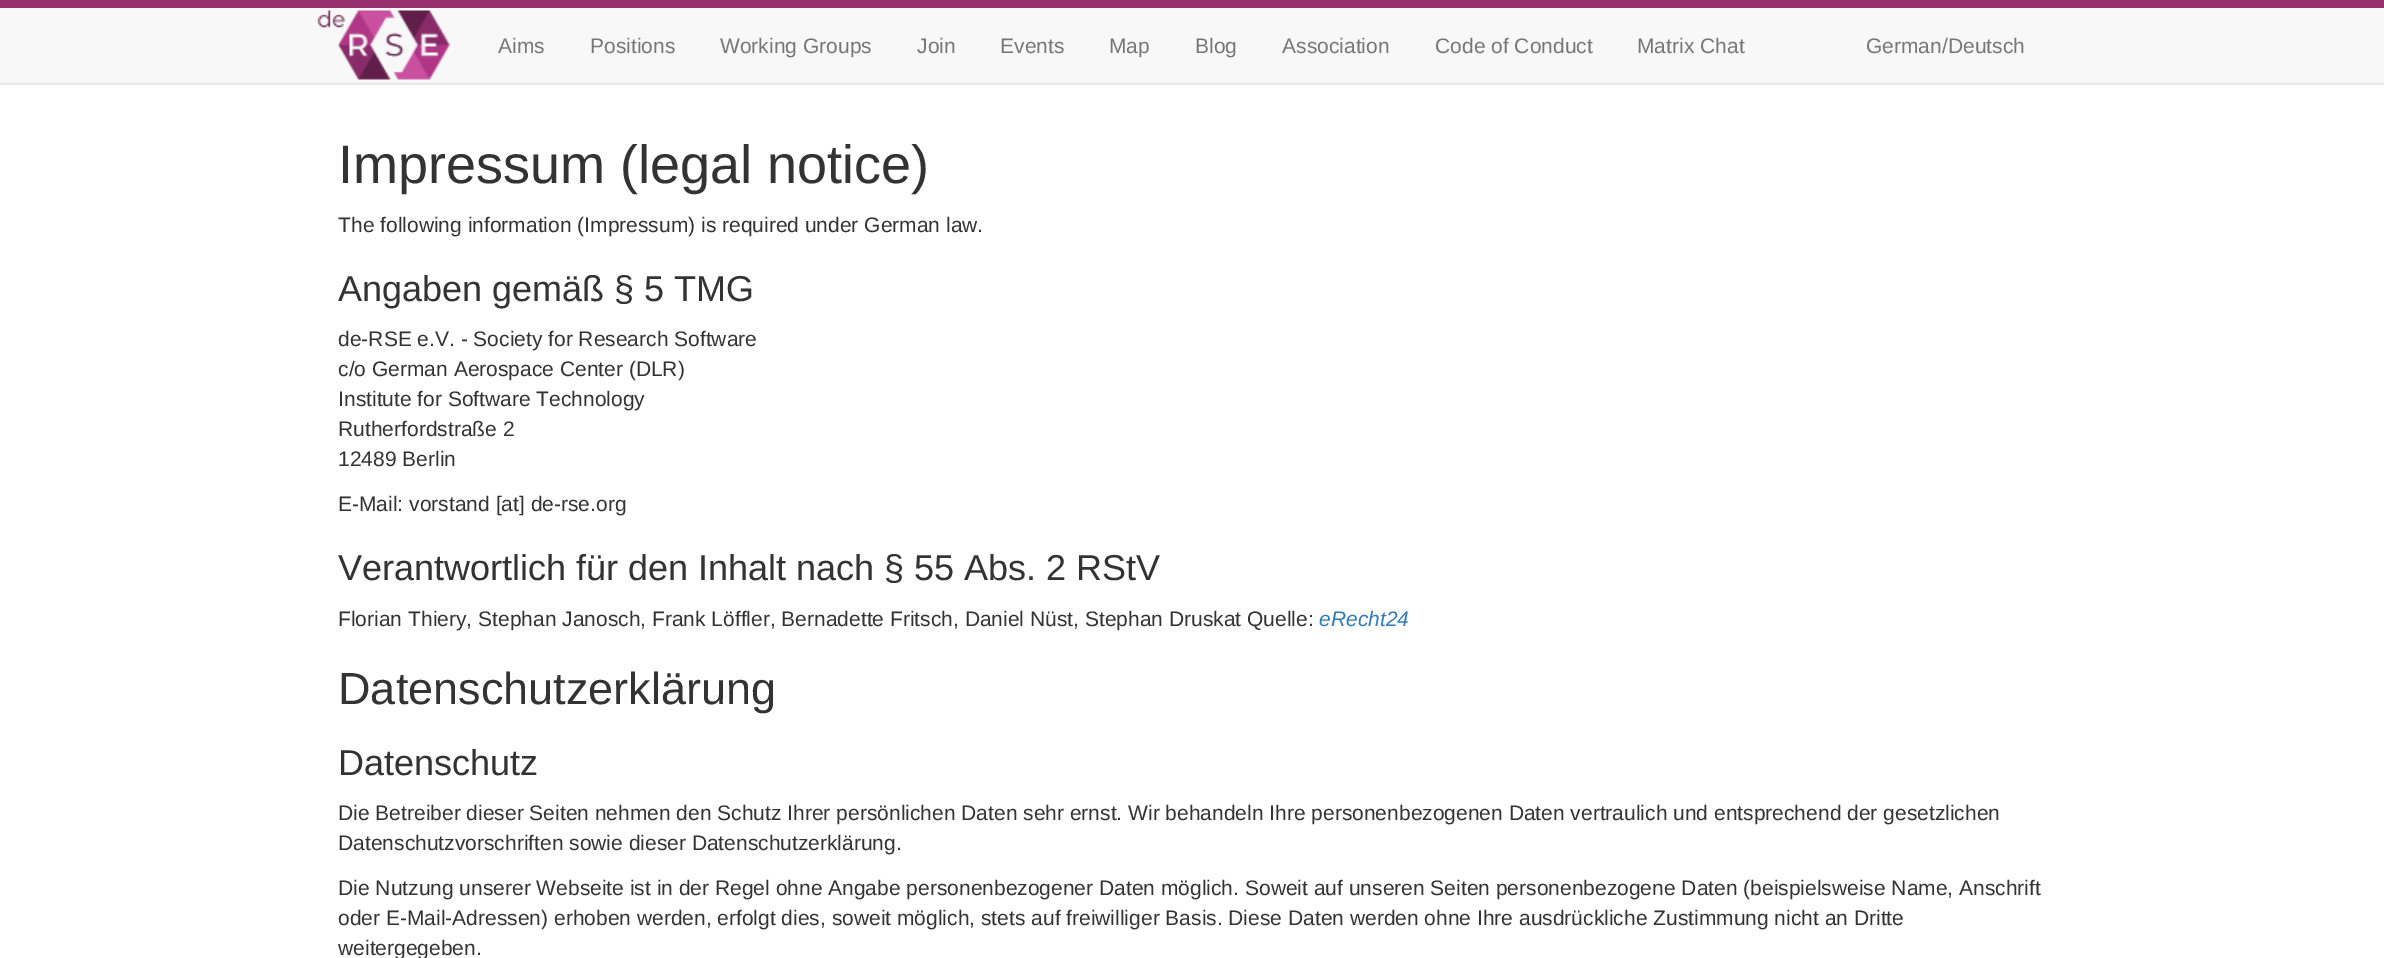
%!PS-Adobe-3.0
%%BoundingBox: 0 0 2384 958
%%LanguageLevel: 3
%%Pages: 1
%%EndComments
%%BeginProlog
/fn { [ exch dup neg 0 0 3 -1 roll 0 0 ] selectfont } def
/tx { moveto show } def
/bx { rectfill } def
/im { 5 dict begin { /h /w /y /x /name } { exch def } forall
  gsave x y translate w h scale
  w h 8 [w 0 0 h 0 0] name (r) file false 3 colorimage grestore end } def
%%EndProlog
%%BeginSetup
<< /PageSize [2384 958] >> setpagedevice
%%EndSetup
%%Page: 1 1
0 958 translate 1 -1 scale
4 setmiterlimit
1 setgray
0 0 2384 958 bx
0.973 setgray
0 8 2384 75 bx
0.592 0.192 0.431 setrgbcolor
0 0 2384 8 bx
0.906 setgray
0 83 2384 2 bx
(image0.raw) 317 10 134 70 im
/LiberationSans-Regular 21 fn
0.467 setgray
(Aims) 498 53 tx
(Positions) 590 53 tx
(Working Groups) 720 53 tx
(Join) 917 53 tx
(Events) 1000 53 tx
(Map) 1109 53 tx
(Blog) 1195 53 tx
(Association) 1282 53 tx
(Code of Conduct) 1435 53 tx
(Matrix Chat) 1637 53 tx
(German/Deutsch) 1866 53 tx
/LiberationSans-Regular 54 fn
0.2 setgray
(Impressum \(legal notice\)) 338 183 tx
/LiberationSans-Regular 21 fn
(The following information \(Impressum\) is required under German law.) 338 232 tx
/LiberationSans-Regular 36 fn
(Angaben gemäß § 5 TMG) 338 301 tx
/LiberationSans-Regular 21 fn
(de-RSE e.V. - Society for Research Software) 338 346 tx
(c/o German Aerospace Center \(DLR\)) 338 376 tx
(Institute for Software Technology) 338 406 tx
(Rutherfordstraße 2) 338 436 tx
(12489 Berlin) 338 466 tx
(E-Mail: vorstand [at] de-rse.org) 338 511 tx
/LiberationSans-Regular 36 fn
(Verantwortlich für den Inhalt nach § 55 Abs. 2 RStV) 338 580 tx
/LiberationSans-Regular 21 fn
(Florian Thiery, Stephan Janosch, Frank Löffler, Bernadette Fritsch, Daniel Nüst, Stephan Druskat Quelle:) 338 626 tx
/LiberationSans-Italic 21 fn
0.2 0.478 0.718 setrgbcolor
(eRecht24) 1319 626 tx
/LiberationSans-Regular 45 fn
0.2 setgray
(Datenschutzerklärung) 338 704 tx
/LiberationSans-Regular 36 fn
(Datenschutz) 338 775 tx
/LiberationSans-Regular 21 fn
(Die Betreiber dieser Seiten nehmen den Schutz Ihrer persönlichen Daten sehr ernst. Wir behandeln Ihre personenbezogenen Daten vertraulich und entsprechend der gesetzlichen) 338 820 tx
(Datenschutzvorschriften sowie dieser Datenschutzerklärung.) 338 850 tx
(Die Nutzung unserer Webseite ist in der Regel ohne Angabe personenbezogener Daten möglich. Soweit auf unseren Seiten personenbezogene Daten \(beispielsweise Name, Anschrift) 338 895 tx
(oder E-Mail-Adressen\) erhoben werden, erfolgt dies, soweit möglich, stets auf freiwilliger Basis. Diese Daten werden ohne Ihre ausdrückliche Zustimmung nicht an Dritte) 338 925 tx
(weitergegeben.) 338 955 tx
showpage
%%EOF
